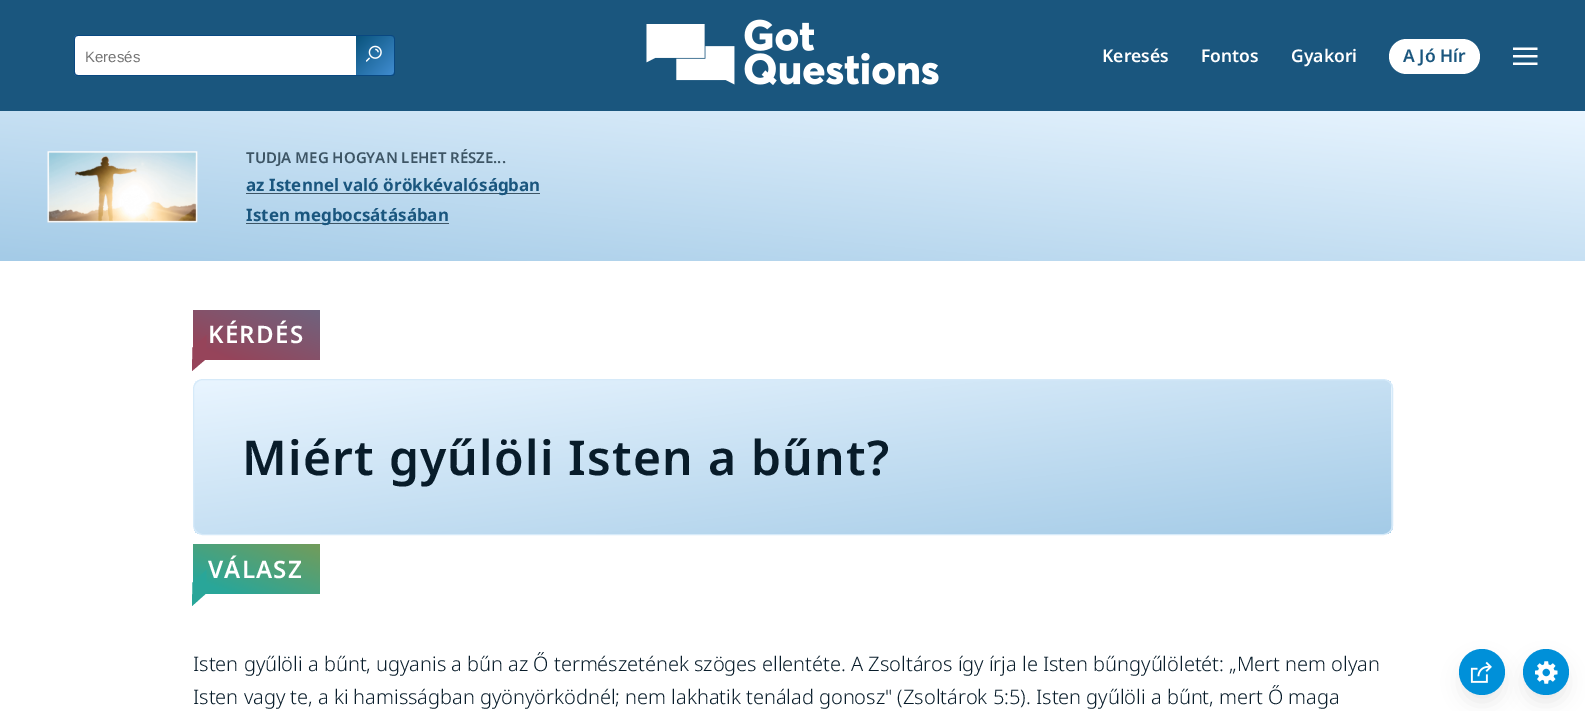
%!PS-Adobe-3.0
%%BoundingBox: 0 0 1585 711
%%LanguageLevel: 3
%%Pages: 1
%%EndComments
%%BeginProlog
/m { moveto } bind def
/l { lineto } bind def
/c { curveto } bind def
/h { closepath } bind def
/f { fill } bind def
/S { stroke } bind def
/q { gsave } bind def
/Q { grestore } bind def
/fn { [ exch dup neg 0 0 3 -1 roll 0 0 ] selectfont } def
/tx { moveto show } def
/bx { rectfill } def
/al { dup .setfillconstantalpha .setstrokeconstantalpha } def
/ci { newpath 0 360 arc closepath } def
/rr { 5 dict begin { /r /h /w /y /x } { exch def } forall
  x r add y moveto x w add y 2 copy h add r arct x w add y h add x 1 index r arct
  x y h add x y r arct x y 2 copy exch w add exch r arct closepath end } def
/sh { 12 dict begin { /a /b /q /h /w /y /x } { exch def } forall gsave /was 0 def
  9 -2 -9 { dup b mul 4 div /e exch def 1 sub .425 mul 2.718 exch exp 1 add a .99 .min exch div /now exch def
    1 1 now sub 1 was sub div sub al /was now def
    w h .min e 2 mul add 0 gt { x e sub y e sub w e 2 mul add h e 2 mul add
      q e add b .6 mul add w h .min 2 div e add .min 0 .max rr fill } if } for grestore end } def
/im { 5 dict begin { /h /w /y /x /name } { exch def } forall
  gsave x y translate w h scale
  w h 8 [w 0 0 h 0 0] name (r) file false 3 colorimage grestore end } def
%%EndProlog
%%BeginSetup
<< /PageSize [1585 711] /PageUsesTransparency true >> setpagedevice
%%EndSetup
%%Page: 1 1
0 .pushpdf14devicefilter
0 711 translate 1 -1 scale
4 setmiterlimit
1 setgray
0 0 1585 711 bx
0.102 0.337 0.494 setrgbcolor
0 0 1585 111 bx
1 setgray
78 35 m 356 35 l 356 76 l 78 76 l 76 76 74 74 74 72 c 74 39 l 74 37 76 35 78 35 c h f
0.035 0.282 0.506 setrgbcolor
78 35 m 356 35 l 356 76 l 78 76 l 75 76 74 75 74 72 c 74 39 l 74 37 75 35 78 35 c h 78 36 m 356 36 l 356 75 l 78 75 l 76 75 75 74 75 72 c 75 39 l 75 37 76 36 78 36 c h eofill
/LiberationSans-Regular 15 fn
0.459 setgray
(Keresés) 85 62 tx
q 356 36 m 394 36 l 394 75 l 356 75 l h clip newpath
<< /ShadingType 2 /ColorSpace /DeviceRGB /Coords [356 37 394 74] /Extend [true true] /Function << /FunctionType 2 /Domain [0 1] /C0 [0.039 0.329 0.49] /C1 [0.251 0.549 0.816] /N 1 >> >> shfill Q
0.035 0.282 0.506 setrgbcolor
356 35 m 391 35 l 393 35 395 37 395 39 c 395 72 l 395 75 393 76 391 76 c 356 76 l h 356 36 m 391 36 l 393 36 394 37 394 39 c 394 72 l 394 74 393 75 391 75 c 356 75 l h eofill
(image0.raw) 366 45 16 17 im
(image1.raw) 646 19 293 66 im
/NotoSans-SemiBold 17.5 fn
1 setgray
(Keresés) 1102 62 tx
(Fontos) 1201 62 tx
(Gyakori) 1291 62 tx
1389 39 91 35 17.5 rr f
0.102 0.337 0.494 setrgbcolor
(A Jó Hír) 1403 62 tx
(image2.raw) 1513 47 25 18 im
q 0 111 m 1585 111 l 1585 261 l 0 261 l h clip newpath
<< /ShadingType 2 /ColorSpace /DeviceRGB /Coords [778 335 807 38] /Extend [true true] /Function << /FunctionType 2 /Domain [0 1] /C0 [0.643 0.796 0.906] /C1 [0.914 0.961 1] /N 1 >> >> shfill Q
(image3.raw) 47 151 151 72 im
/NotoSans-SemiBold 15 fn
0.239 0.333 0.396 setrgbcolor
(TUDJA MEG HOGYAN LEHET RÉSZE...) 246 163 tx
246 193 294 1 bx
/NotoSans-Bold 17 fn
0.102 0.337 0.494 setrgbcolor
(az Istennel való örökkévalóságban) 246 191 tx
0.239 0.333 0.396 setrgbcolor
246 223 203 1 bx
0.102 0.337 0.494 setrgbcolor
(Isten megbocsátásában) 246 221 tx
q 193 310 127 50 2.5 rr clip newpath
<< /ShadingType 2 /ColorSpace /DeviceRGB /Coords [239 378 273 292] /Extend [true true] /Function << /FunctionType 3 /Domain [0 1] /Functions [<< /FunctionType 2 /Domain [0 1] /C0 [0.588 0.267 0.353] /C1 [0.588 0.267 0.353] /N 1 >> << /FunctionType 2 /Domain [0 1] /C0 [0.588 0.267 0.353] /C1 [0.435 0.388 0.494] /N 1 >>] /Bounds [0.15] /Encode [0 1 0 1] >> >> shfill Q
/NotoSans-SemiBold 24 fn
1 setgray
208 343 m 1.25 0 (KÉRDÉS) ashow
0.588 0.267 0.353 setrgbcolor
192.5 347.5 m 206.5 335 l 206 359 l 192 371 l h f
q
193 379 1200 156 10 rr clip newpath
q 194 380 m 1391 380 l 1391 534 l 194 534 l h clip newpath
<< /ShadingType 2 /ColorSpace /DeviceRGB /Coords [773 306 812 608] /Extend [true true] /Function << /FunctionType 2 /Domain [0 1] /C0 [0.914 0.961 1] /C1 [0.643 0.796 0.906] /N 1 >> >> shfill Q
q 1391 380 m 1393 380 l 1393 534 l 1391 534 l h clip newpath
<< /ShadingType 2 /ColorSpace /DeviceRGB /Coords [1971 306 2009 608] /Extend [true true] /Function << /FunctionType 2 /Domain [0 1] /C0 [0.914 0.961 1] /C1 [0.643 0.796 0.906] /N 1 >> >> shfill Q
Q
0.839 0.918 0.976 setrgbcolor
193.5 379.5 1199 155 9.5 rr S
/NotoSans-SemiBold 48 fn
0.031 0.11 0.165 setrgbcolor
242 475 m 1.25 0 (Miért gyűlöli Isten a bűnt?) ashow
q 193 544 127 50 2.5 rr clip newpath
<< /ShadingType 2 /ColorSpace /DeviceRGB /Coords [239 612 273 525] /Extend [true true] /Function << /FunctionType 3 /Domain [0 1] /Functions [<< /FunctionType 2 /Domain [0 1] /C0 [0.161 0.651 0.6] /C1 [0.161 0.651 0.6] /N 1 >> << /FunctionType 2 /Domain [0 1] /C0 [0.161 0.651 0.6] /C1 [0.455 0.612 0.353] /N 1 >>] /Bounds [0.15] /Encode [0 1 0 1] >> >> shfill Q
/NotoSans-SemiBold 24 fn
1 setgray
208 578 m 1.25 0 (VÁLASZ) ashow
0.161 0.651 0.6 setrgbcolor
192.5 582.5 m 206.5 570 l 206 593.5 l 192 606 l h f
/NotoSans-Light 20 fn
0.031 0.11 0.165 setrgbcolor
(Isten gyűlöli a bűnt, ugyanis a bűn az Ő természetének szöges ellentéte. A Zsoltáros így írja le Isten bűngyűlöletét: „Mert nem olyan) 193 671 tx
(Isten vagy te, a ki hamisságban gyönyörködnél; nem lakhatik tenálad gonosz" \(Zsoltárok 5:5\). Isten gyűlöli a bűnt, mert Ő maga) 193 704 tx
0 setgray
1526 663 39 38 19 10 0.1 sh
0 0.565 0.851 setrgbcolor
1546 672 23 ci f
0 setgray
1463 663 38 38 19 10 0.1 sh
0 0.565 0.851 setrgbcolor
1482 672 23 ci f
(image4.raw) 1470 661 22 22 im
(image5.raw) 1535 661 23 23 im
.poppdf14devicefilter showpage
%%EOF
